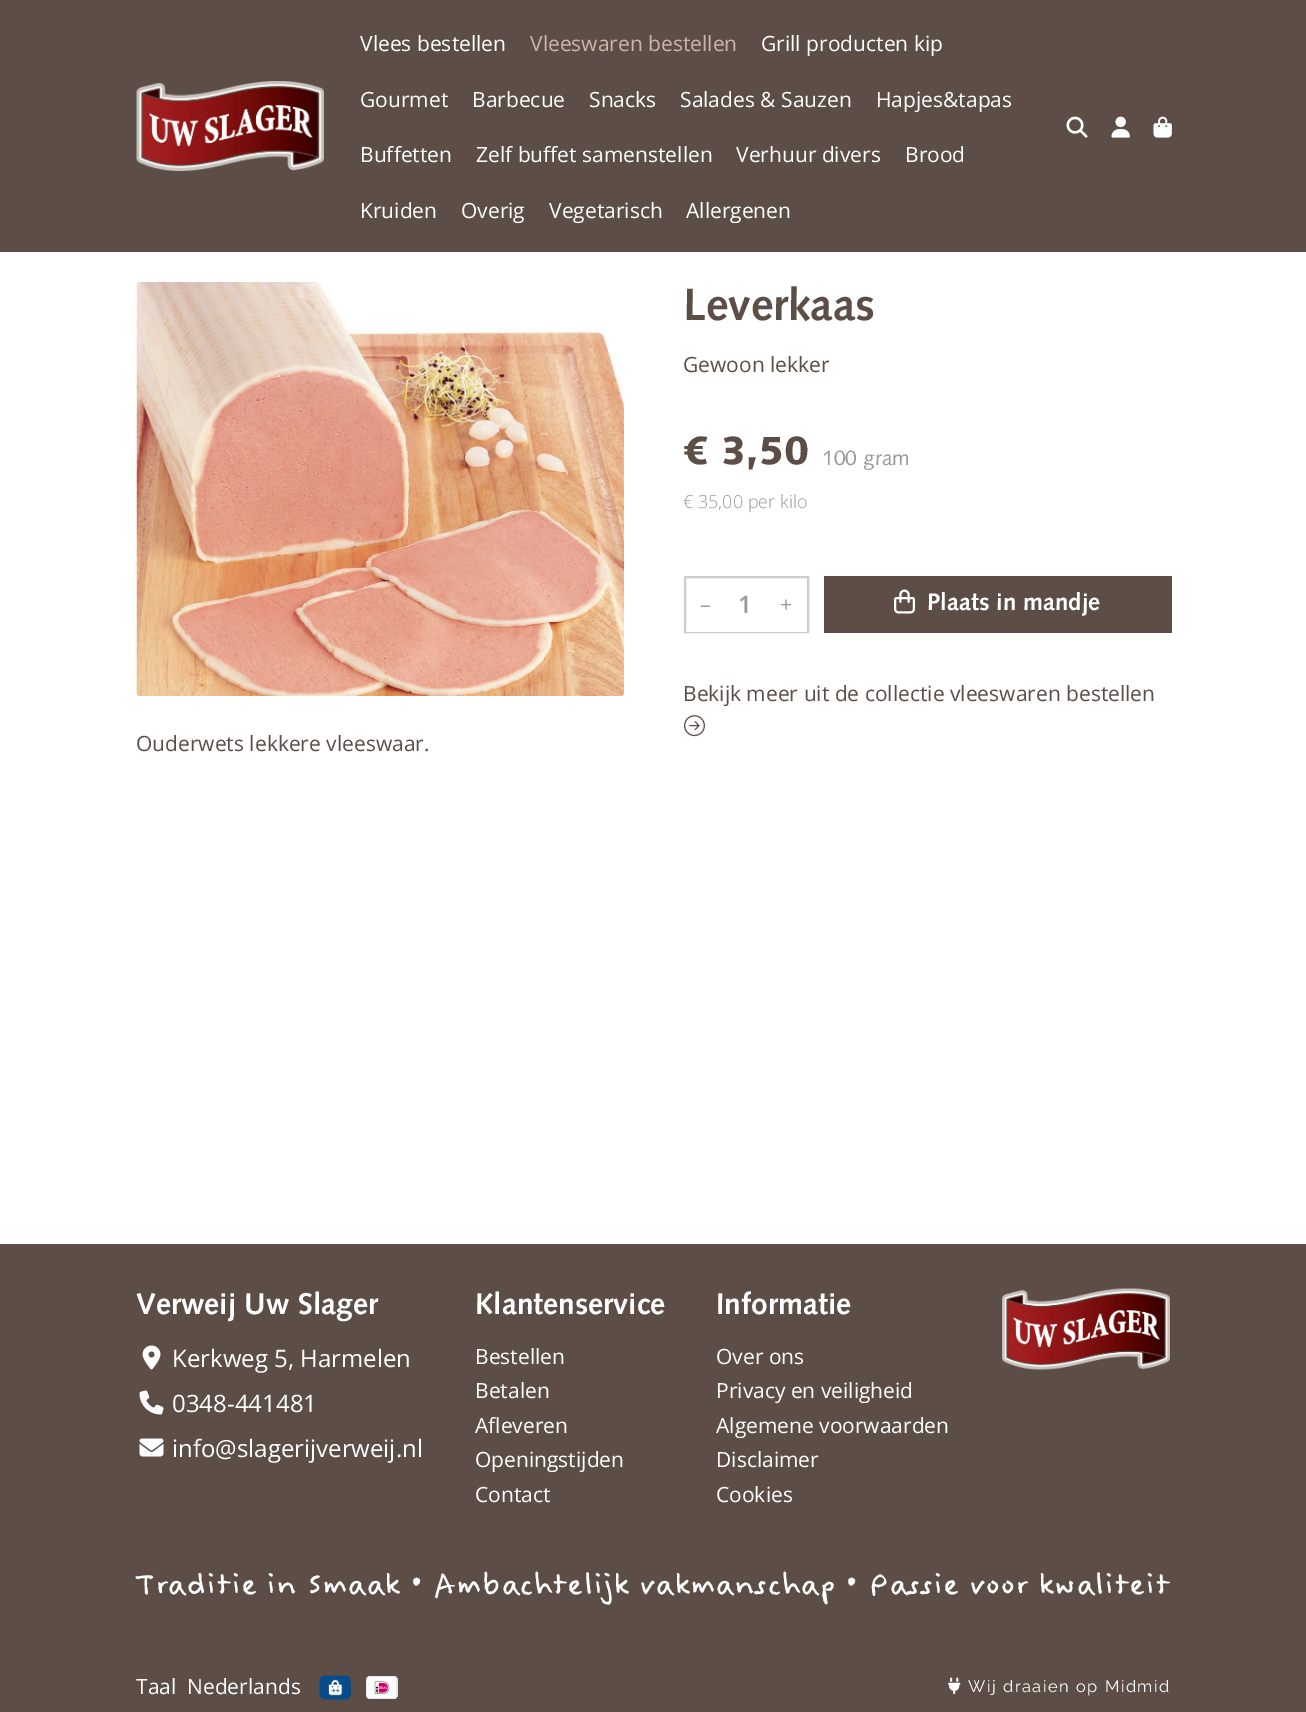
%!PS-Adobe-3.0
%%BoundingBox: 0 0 1306 1712
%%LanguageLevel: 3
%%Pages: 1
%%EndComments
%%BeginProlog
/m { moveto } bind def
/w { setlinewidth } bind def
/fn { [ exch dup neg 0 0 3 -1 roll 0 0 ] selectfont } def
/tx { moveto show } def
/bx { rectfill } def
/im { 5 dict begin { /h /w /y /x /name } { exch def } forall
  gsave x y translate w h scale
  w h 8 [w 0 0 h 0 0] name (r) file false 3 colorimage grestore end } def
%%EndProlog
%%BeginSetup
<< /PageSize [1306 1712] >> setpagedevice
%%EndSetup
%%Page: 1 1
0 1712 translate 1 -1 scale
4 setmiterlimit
1 setgray
0 0 1306 1712 bx
0.361 0.306 0.278 setrgbcolor
0 0 1306 252 bx
(image0.raw) 136 81 188 90 im
/OpenSans-Regular 21 fn
1 setgray
(Vlees bestellen) 360 51 tx
0.804 0.71 0.663 setrgbcolor
(Vleeswaren bestellen) 530 51 tx
1 setgray
(Grill producten kip) 761 51 tx
(Gourmet) 360 107 tx
(Barbecue) 472 107 tx
(Snacks) 589 107 tx
(Salades & Sauzen) 680 107 tx
(Hapjes&tapas) 876 107 tx
(Buffetten) 360 162 tx
(Zelf buffet samenstellen) 476 162 tx
(Verhuur divers) 736 162 tx
(Brood) 905 162 tx
(Kruiden) 360 218 tx
(Overig) 461 218 tx
(Vegetarisch) 549 218 tx
(Allergenen) 686 218 tx
(image1.raw) 1066 116 22 22 im
(image2.raw) 1111 116 19 22 im
(image3.raw) 1153 116 19 22 im
/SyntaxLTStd-Bold 45 fn
0.361 0.306 0.278 setrgbcolor
(Leverkaas) 683 320 tx
/OpenSans-Regular 21 fn
(Gewoon lekker) 683 372 tx
/SyntaxLTStd-Black 39 fn
(€ 3,50) 683 464 tx
/SyntaxLTStd-Regular 21 fn
0.6 setgray
(100 gram) 822 465 tx
/OpenSans-Light 18 fn
(€ 35,00 per kilo) 683 508 tx
0.8 setgray
2 w
685 577 123 55 rectstroke
1 setgray
686 631 121 1 bx
/OpenSans-Regular 21 fn
0.6 setgray
(–) 700 612 tx
/OpenSans-SemiBold 24 fn
(1) 738 613 tx
/OpenSans-Regular 21 fn
(+) 780 612 tx
0.361 0.306 0.278 setrgbcolor
824 576 348 57 bx
(image4.raw) 894 589 21 25 im
/SyntaxLTStd-Bold 24 fn
1 setgray
(Plaats in mandje) 927 610 tx
/OpenSans-Regular 21 fn
0.361 0.306 0.278 setrgbcolor
(Bekijk meer uit de collectie vleeswaren bestellen) 683 701 tx
(image5.raw) 684 715 21 22 im
(image6.raw) 136 282 488 414 im
(Ouderwets lekkere vleeswaar.) 136 751 tx
0 1244 1306 468 bx
/SyntaxLTStd-Bold 30 fn
1 setgray
(Verweij Uw Slager) 136 1314 tx
(image7.raw) 142 1345 19 25 im
/OpenSans-Regular 24 fn
(Kerkweg 5, Harmelen) 172 1367 tx
(image8.raw) 139 1390 25 25 im
(0348-441481) 172 1412 tx
(image9.raw) 139 1438 25 19 im
(info@slagerijverweij.nl) 172 1457 tx
/SyntaxLTStd-Bold 30 fn
(Klantenservice) 475 1314 tx
/OpenSans-Regular 21 fn
(Bestellen) 475 1364 tx
(Betalen) 475 1398 tx
(Afleveren) 475 1433 tx
(Openingstijden) 475 1467 tx
(Contact) 475 1502 tx
/SyntaxLTStd-Bold 30 fn
(Informatie) 716 1314 tx
/OpenSans-Regular 21 fn
(Over ons) 716 1364 tx
(Privacy en veiligheid) 716 1398 tx
(Algemene voorwaarden) 716 1433 tx
(Disclaimer) 716 1467 tx
(Cookies) 716 1502 tx
(image10.raw) 1002 1288 168 82 im
/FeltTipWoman-Regular 39 fn
(Traditie in Smaak • Ambachtelijk vakmanschap • Passie voor kwaliteit) 136 1593 tx
/OpenSans-Regular 21 fn
(Taal) 136 1694 tx
(Nederlands) 187 1694 tx
(image11.raw) 319 1675 32 25 im
(image12.raw) 366 1676 32 23 im
(image13.raw) 948 1677 13 17 im
/Raleway-Regular 16.5 fn
968 1692 m 1.5 0 (Wij draaien op Midmid) ashow
showpage
%%EOF
